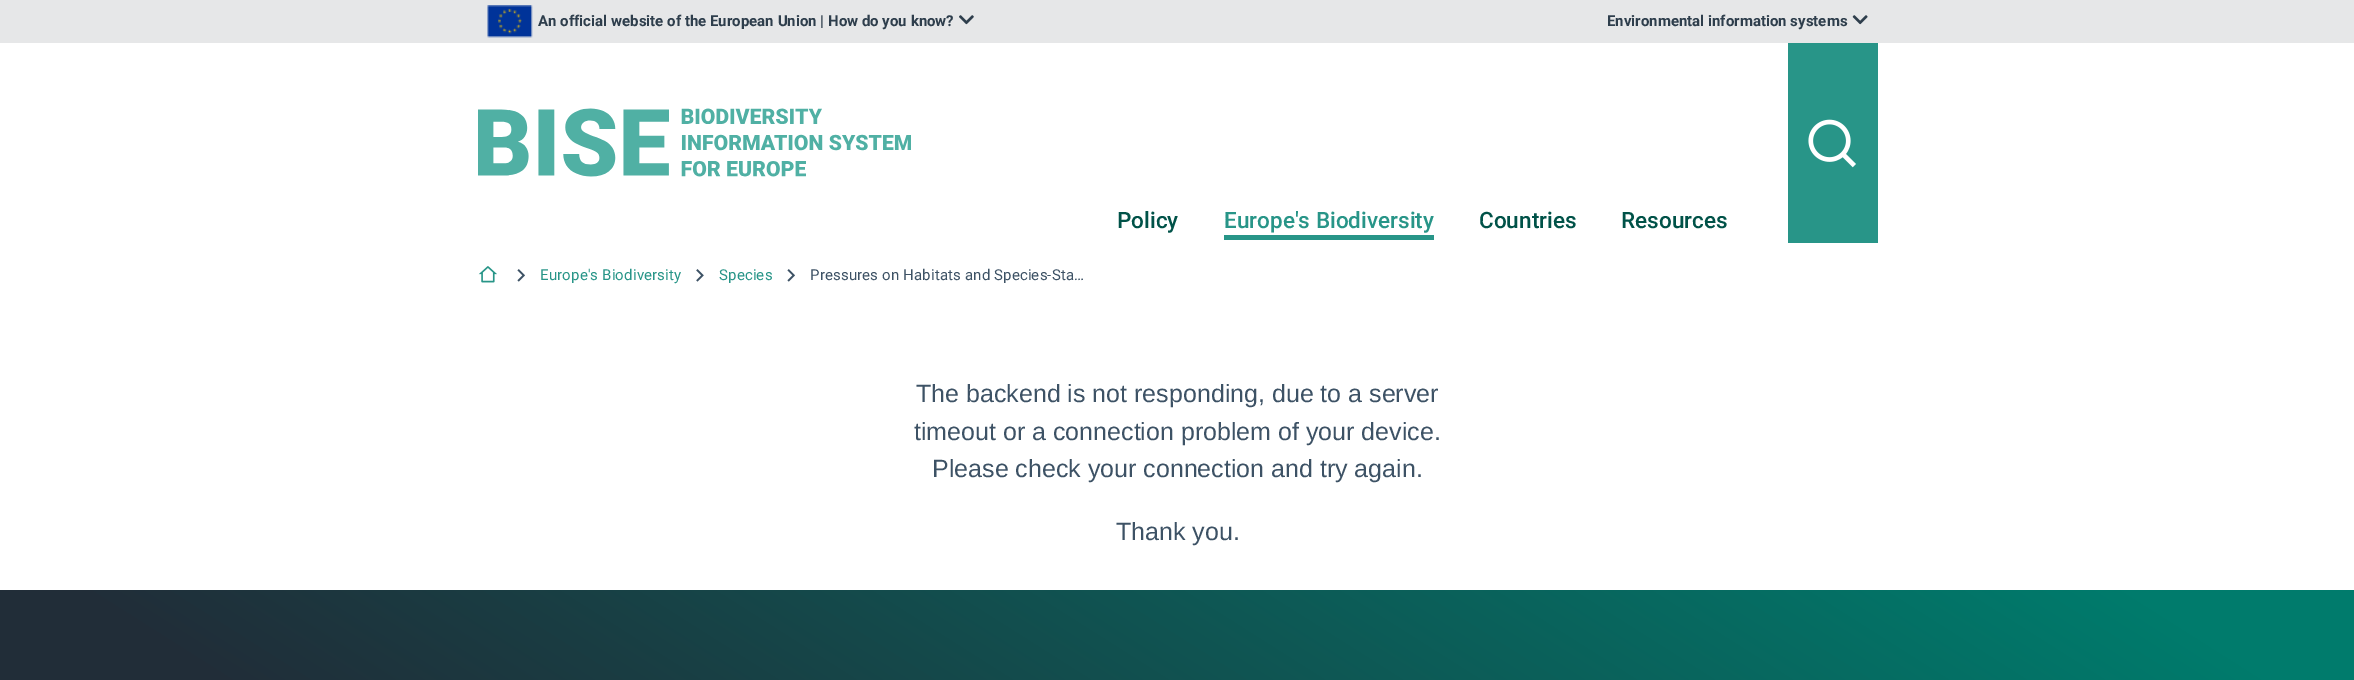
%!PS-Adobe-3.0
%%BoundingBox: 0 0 2354 680
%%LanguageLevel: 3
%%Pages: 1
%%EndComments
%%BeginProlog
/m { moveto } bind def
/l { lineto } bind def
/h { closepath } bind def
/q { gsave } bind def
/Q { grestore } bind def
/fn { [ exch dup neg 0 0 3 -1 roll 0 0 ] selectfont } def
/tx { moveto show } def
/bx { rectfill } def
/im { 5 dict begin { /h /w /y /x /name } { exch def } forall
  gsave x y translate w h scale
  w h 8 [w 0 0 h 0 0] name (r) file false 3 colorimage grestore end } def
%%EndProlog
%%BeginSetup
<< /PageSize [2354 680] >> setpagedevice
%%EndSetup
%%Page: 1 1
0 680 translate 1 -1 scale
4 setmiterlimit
1 setgray
0 0 2354 680 bx
0.902 0.906 0.91 setrgbcolor
0 0 2354 43 bx
(image0.raw) 487 5 46 33 im
/Roboto-Bold 15 fn
0.18 0.243 0.298 setrgbcolor
(An official website of the European Union | How do you know?) 538 26 tx
(image1.raw) 959 15 15 10 im
(Environmental information systems) 1607 26 tx
(image2.raw) 1852 15 16 10 im
(image3.raw) 478 108 433 69 im
/Roboto-Medium 22.5 fn
0 0.322 0.282 setrgbcolor
(Policy) 1117 228 tx
0.157 0.584 0.533 setrgbcolor
1224 235 210 5 bx
(Europe's Biodiversity) 1224 228 tx
0 0.322 0.282 setrgbcolor
(Countries) 1479 228 tx
(Resources) 1621 228 tx
0.157 0.584 0.533 setrgbcolor
1788 43 90 200 bx
(image4.raw) 1808 119 48 49 im
(image5.raw) 478 266 19 17 im
(image6.raw) 517 269 8 13 im
/Roboto-Regular 15 fn
540 280 m 0.15 0 (Europe's Biodiversity) ashow
(image7.raw) 696 269 8 13 im
719 280 m 0.15 0 (Species) ashow
(image6.raw) 787 269 8 13 im
0.239 0.322 0.396 setrgbcolor
810 280 m 0.15 0 (Pressures on Habitats and Species-Sta…) ashow
/LiberationSans-Regular 25 fn
(The backend is not responding, due to a server) 916 402 tx
(timeout or a connection problem of your device.) 914 440 tx
(Please check your connection and try again.) 932 477 tx
(Thank you.) 1116 540 tx
q 0 590 m 2354 590 l 2354 680 l 0 680 l h clip newpath
<< /ShadingType 2 /ColorSpace /DeviceRGB /Coords [1644 140 711 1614] /Extend [true true] /Function << /FunctionType 3 /Domain [0 1] /Functions [<< /FunctionType 2 /Domain [0 1] /C0 [0 0.482 0.424] /C1 [0 0.482 0.424] /N 1 >> << /FunctionType 2 /Domain [0 1] /C0 [0 0.482 0.424] /C1 [0.129 0.176 0.22] /N 1 >> << /FunctionType 2 /Domain [0 1] /C0 [0.129 0.176 0.22] /C1 [0.129 0.176 0.22] /N 1 >> << /FunctionType 2 /Domain [0 1] /C0 [0.129 0.176 0.22] /C1 [0.129 0.176 0.22] /N 1 >>] /Bounds [0.07 0.7 0.98] /Encode [0 1 0 1 0 1 0 1] >> >> shfill Q
showpage
%%EOF
